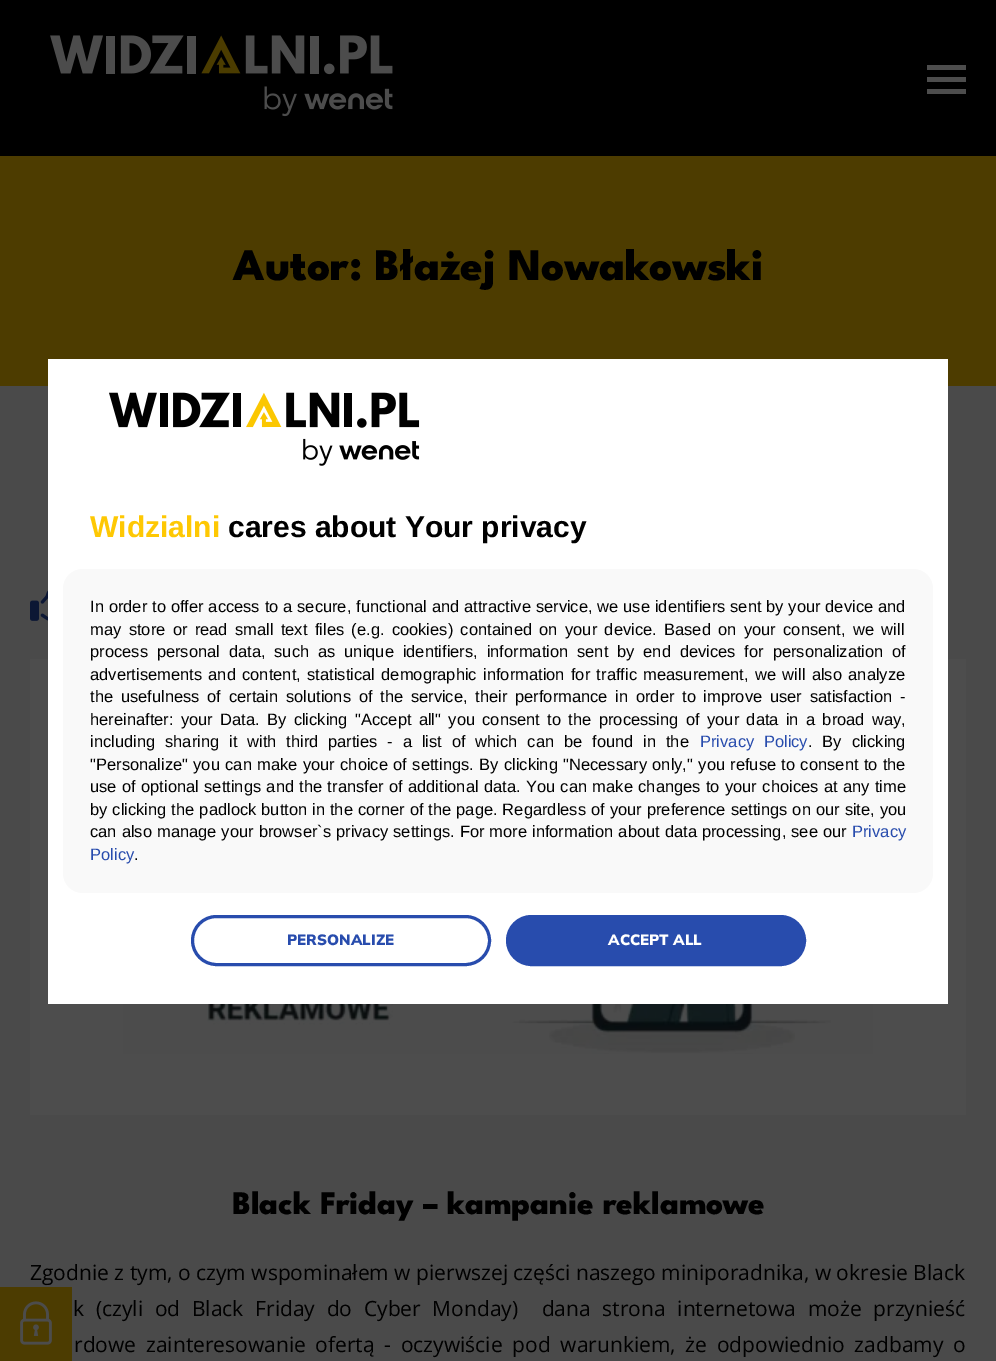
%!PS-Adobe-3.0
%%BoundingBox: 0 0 996 1361
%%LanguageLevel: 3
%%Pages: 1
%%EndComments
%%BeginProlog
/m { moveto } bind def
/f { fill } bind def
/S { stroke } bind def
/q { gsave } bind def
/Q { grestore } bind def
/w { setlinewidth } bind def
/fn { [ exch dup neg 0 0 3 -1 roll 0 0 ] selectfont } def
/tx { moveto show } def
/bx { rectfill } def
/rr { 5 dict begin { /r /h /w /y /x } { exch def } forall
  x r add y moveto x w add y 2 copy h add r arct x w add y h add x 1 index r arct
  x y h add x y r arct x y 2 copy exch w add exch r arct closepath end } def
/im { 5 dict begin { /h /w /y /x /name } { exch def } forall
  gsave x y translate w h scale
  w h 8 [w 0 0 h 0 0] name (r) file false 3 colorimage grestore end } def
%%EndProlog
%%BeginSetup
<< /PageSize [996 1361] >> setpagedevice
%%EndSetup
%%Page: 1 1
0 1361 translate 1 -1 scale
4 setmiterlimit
0.302 0.235 0 setrgbcolor
0 0 996 1361 bx
0 setgray
0 0 996 156 bx
(image0.raw) 50 35 343 82 im
0.302 setgray
927 77 39 5 bx
927 65 39 5 bx
927 89 39 5 bx
/LeagueSpartan-ExtraBold 45 fn
0 setgray
(Autor: Błażej Nowakowski) 233 280 tx
0.29 setgray
0 386 996 975 bx
(image1.raw) 30 590 18 31 im
0.302 setgray
30 659 936 456 bx
(image2.raw) 123 1004 750 50 im
/LeagueSpartan-ExtraBold 33 fn
0 setgray
(Black Friday – kampanie reklamowe) 232 1214 tx
/OpenSans-Regular 21 fn
(Zgodnie z tym, o czym wspominałem w pierwszej części naszego miniporadnika, w okresie Black) 30 1280 tx
73 1316 m 6.25 0 32 (k \(czyli od Black Friday do Cyber Monday\)  dana strona internetowa może przynieść) widthshow
74 1352 m 4.25 0 32 (rdowe zainteresowanie ofertą - oczywiście pod warunkiem, że odpowiednio zadbamy o) widthshow
1 setgray
48 359 900 645 bx
(image3.raw) 109 392 311 74 im
/LiberationSans-Bold 30 fn
0.996 0.784 0.012 setrgbcolor
(Widzialni) 90 537 tx
0 setgray
(cares about Your privacy) 228 537 tx
0.976 setgray
63 569 870 324 20 rr f
/LiberationSans-Regular 16.5 fn
0 setgray
90 612 m 0.25 0 32 (In order to offer access to a secure, functional and attractive service, we use identifiers sent by your device and) widthshow
90 635 m 2.75 0 32 (may store or read small text files \(e.g. cookies\) contained on your device. Based on your consent, we will) widthshow
90 657 m 4.25 0 32 (process personal data, such as unique identifiers, information sent by end devices for personalization of) widthshow
90 680 m 1.75 0 32 (advertisements and content, statistical demographic information for traffic measurement, we will also analyze) widthshow
90 702 m 3.1 0 32 (the usefulness of certain solutions of the service, their performance in order to improve user satisfaction -) widthshow
90 725 m 2.75 0 32 (hereinafter: your Data. By clicking "Accept all" you consent to the processing of your data in a broad way,) widthshow
90 747 m 5.25 0 32 (including sharing it with third parties - a list of which can be found in the) widthshow
0.157 0.298 0.678 setrgbcolor
700 747 m 5 0 32 (Privacy Policy) widthshow
0 setgray
808 747 m 5.25 0 32 (. By clicking) widthshow
90 770 m 0.75 0 32 ("Personalize" you can make your choice of settings. By clicking "Necessary only," you refuse to consent to the) widthshow
90 792 m 0.75 0 32 (use of optional settings and the transfer of additional data. You can make changes to your choices at any time) widthshow
90 815 m 0.4 0 32 (by clicking the padlock button in the corner of the page. Regardless of your preference settings on our site, you) widthshow
90 837 m 0.4 0 32 (can also manage your browser`s privacy settings. For more information about data processing, see our) widthshow
0.157 0.298 0.678 setrgbcolor
(Privacy) 852 837 tx
(Policy) 90 860 tx
0 setgray
(.) 134 860 tx
0.157 0.298 0.678 setrgbcolor
3 w
192.5 916.5 297 48 24 rr S
/Mulish-Black 15 fn
(PERSONALIZE) 287 945 tx
507.5 916.5 297 48 24 rr q f Q
S
1 setgray
(ACCEPT ALL) 608 945 tx
0.298 0.235 0.004 setrgbcolor
0 1287 72 74 bx
(image4.raw) 20 1301 32 44 im
showpage
%%EOF
